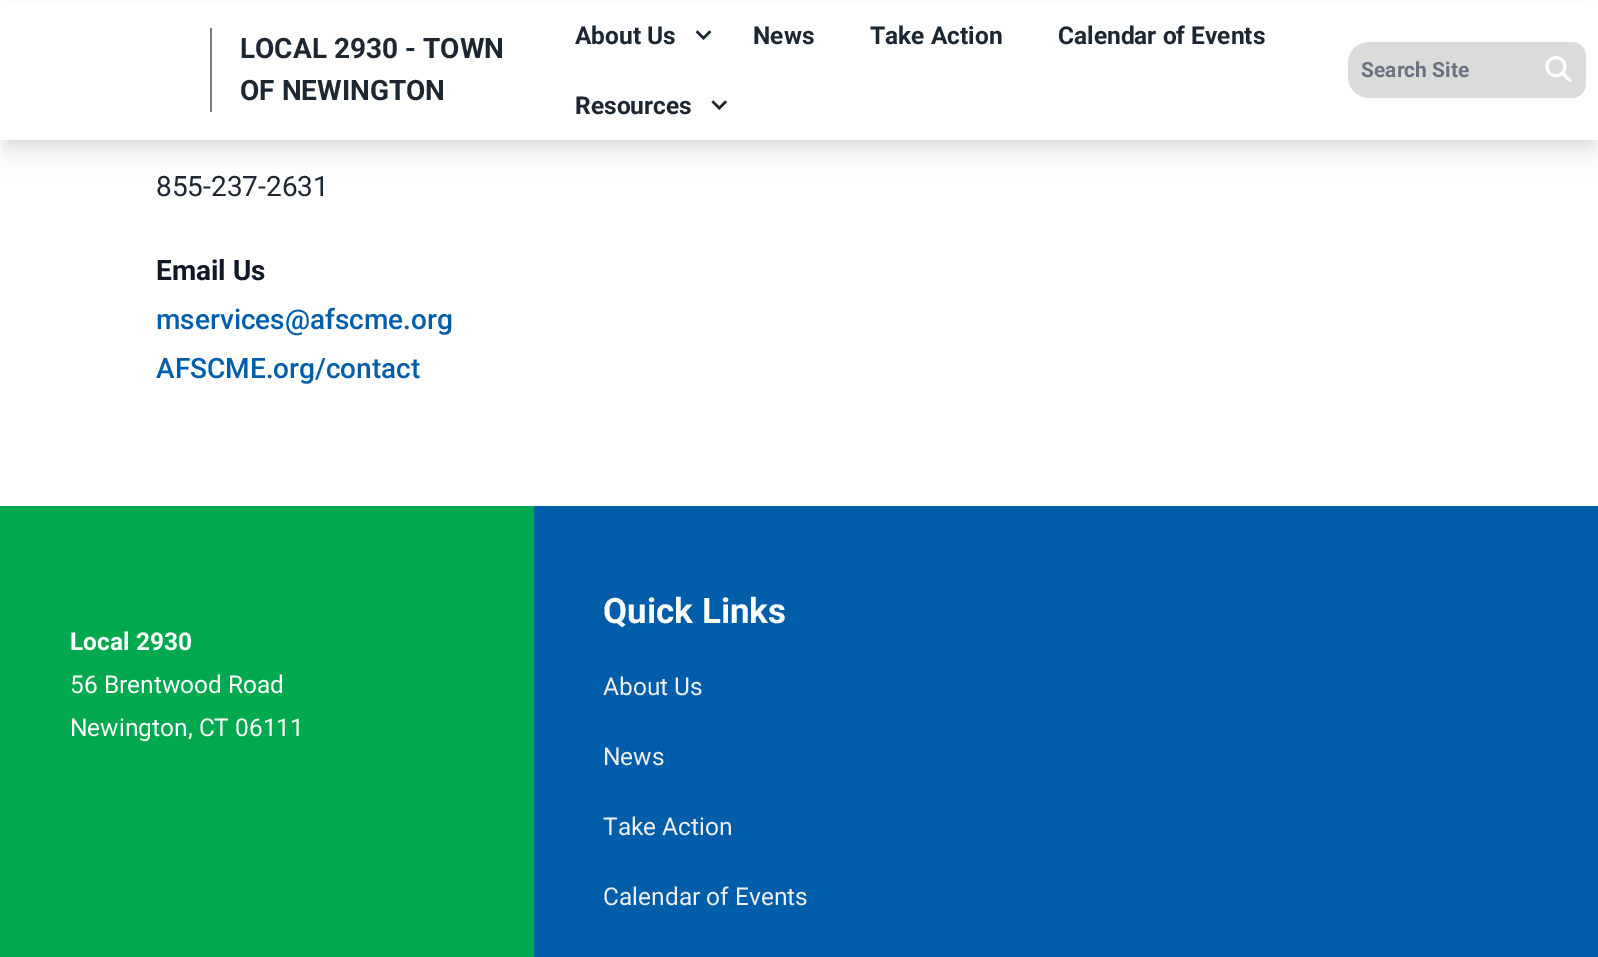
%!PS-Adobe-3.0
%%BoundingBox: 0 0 1598 957
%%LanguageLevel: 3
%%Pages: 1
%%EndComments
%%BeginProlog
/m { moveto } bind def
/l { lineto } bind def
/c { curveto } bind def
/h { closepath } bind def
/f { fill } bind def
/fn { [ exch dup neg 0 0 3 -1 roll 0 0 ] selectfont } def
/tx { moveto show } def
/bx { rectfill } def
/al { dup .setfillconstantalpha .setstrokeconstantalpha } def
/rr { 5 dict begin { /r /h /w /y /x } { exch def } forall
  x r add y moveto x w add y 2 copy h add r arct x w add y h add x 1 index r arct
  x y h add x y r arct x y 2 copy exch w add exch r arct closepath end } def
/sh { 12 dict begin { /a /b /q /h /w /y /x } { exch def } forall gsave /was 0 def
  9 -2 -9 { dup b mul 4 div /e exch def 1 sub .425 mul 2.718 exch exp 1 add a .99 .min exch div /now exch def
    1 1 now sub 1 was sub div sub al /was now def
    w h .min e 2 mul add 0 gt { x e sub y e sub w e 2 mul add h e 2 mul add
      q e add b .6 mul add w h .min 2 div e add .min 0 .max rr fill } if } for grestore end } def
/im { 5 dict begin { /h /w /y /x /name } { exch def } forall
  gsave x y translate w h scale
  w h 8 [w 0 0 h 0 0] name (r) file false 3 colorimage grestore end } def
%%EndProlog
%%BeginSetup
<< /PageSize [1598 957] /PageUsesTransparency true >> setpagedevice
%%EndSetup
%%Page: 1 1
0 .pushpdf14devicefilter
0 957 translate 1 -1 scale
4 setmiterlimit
1 setgray
0 0 1598 957 bx
0 setgray
7 14 1586 126 0 5 0.1 sh
5 23 1589 129 0 13 0.1 sh
1 setgray
0 4 1598 136 bx
0.467 0.49 0.514 setrgbcolor
210 28 2 84 bx
/Roboto-Bold 28 fn
0.114 0.153 0.192 setrgbcolor
(LOCAL 2930 - TOWN) 240 58 tx
(OF NEWINGTON) 240 100 tx
/Roboto-Bold 24.5 fn
(About Us) 575 44 tx
(image0.raw) 695 30 17 10 im
(News) 753 44 tx
(Take Action) 870 44 tx
(Calendar of Events) 1058 44 tx
(Resources) 575 114 tx
(image1.raw) 711 100 17 10 im
0.859 setgray
1369 42 m 1531 42 l 1531 98 l 1369 98 l 1357.5 98 1348 88.5 1348 77 c 1348 63 l 1348 51.5 1357.5 42 1369 42 c h f
/Roboto-Bold 21 fn
0.42 0.447 0.502 setrgbcolor
(Search Site) 1361 77 tx
0.859 setgray
1531 42 m 1572 42 l 1579.5 42 1586 48.5 1586 56 c 1586 84 l 1586 91.5 1579.5 98 1572 98 c 1531 98 l h f
(image2.raw) 1545 56 27 27 im
/Roboto-Regular 28 fn
0.114 0.153 0.192 setrgbcolor
(855-237-2631) 156 196 tx
/Roboto-Bold 28 fn
0.067 0.094 0.153 setrgbcolor
(Email Us) 156 280 tx
/Roboto-Medium 28 fn
0 0.365 0.667 setrgbcolor
(mservices@afscme.org) 156 329 tx
(AFSCME.org/contact) 156 378 tx
0 0.663 0.31 setrgbcolor
0 506 534 451 bx
/Roboto-Bold 24.5 fn
1 setgray
(Local 2930) 70 650 tx
/Roboto-Regular 24.5 fn
(56 Brentwood Road) 70 693 tx
(Newington, CT 06111) 70 736 tx
0 0.365 0.667 setrgbcolor
534 506 1064 451 bx
/Roboto-Bold 35 fn
1 setgray
(Quick Links) 603 623 tx
/Roboto-Regular 24.5 fn
0.937 setgray
(About Us) 603 695 tx
(News) 603 765 tx
(Take Action) 603 835 tx
(Calendar of Events) 603 905 tx
.poppdf14devicefilter showpage
%%EOF
